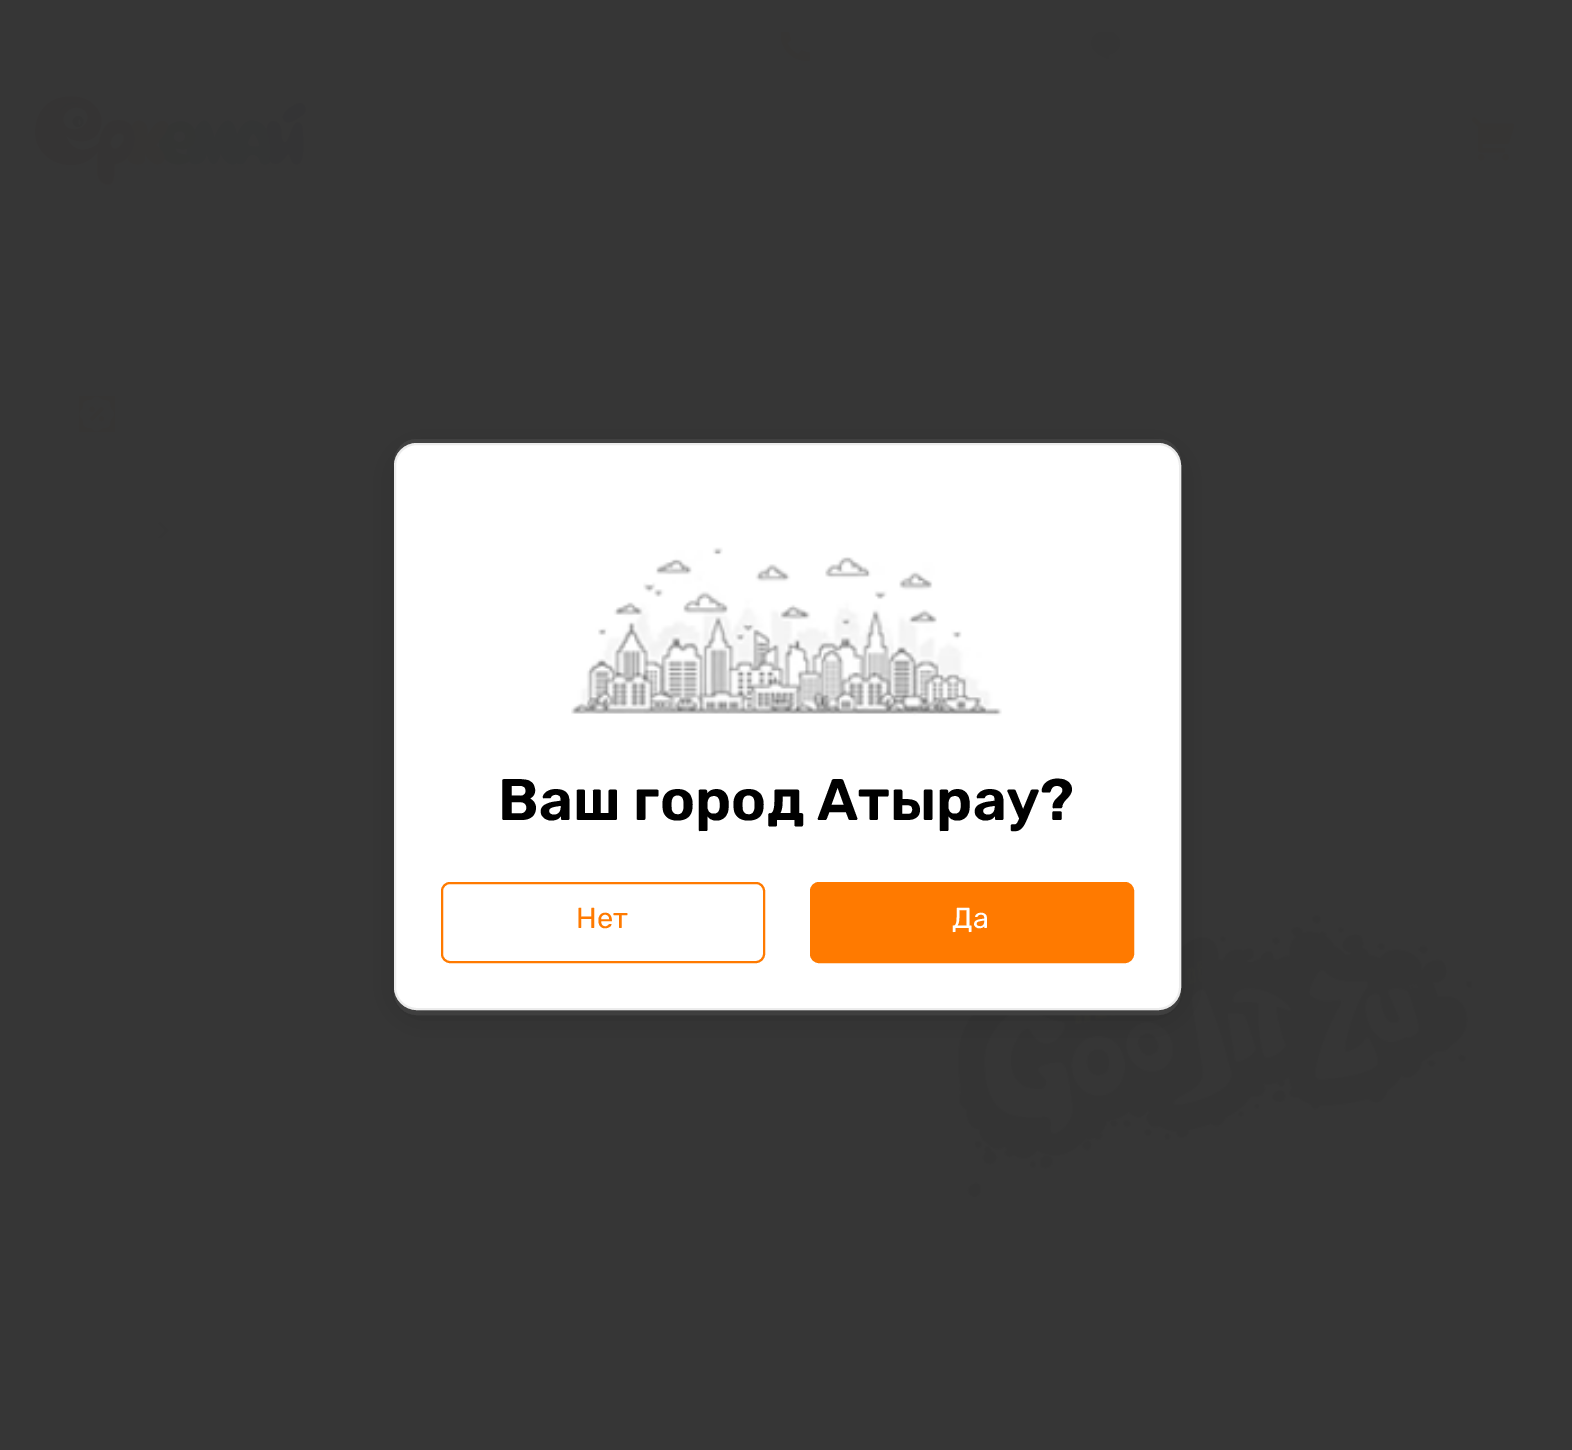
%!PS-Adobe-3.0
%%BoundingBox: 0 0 1572 1450
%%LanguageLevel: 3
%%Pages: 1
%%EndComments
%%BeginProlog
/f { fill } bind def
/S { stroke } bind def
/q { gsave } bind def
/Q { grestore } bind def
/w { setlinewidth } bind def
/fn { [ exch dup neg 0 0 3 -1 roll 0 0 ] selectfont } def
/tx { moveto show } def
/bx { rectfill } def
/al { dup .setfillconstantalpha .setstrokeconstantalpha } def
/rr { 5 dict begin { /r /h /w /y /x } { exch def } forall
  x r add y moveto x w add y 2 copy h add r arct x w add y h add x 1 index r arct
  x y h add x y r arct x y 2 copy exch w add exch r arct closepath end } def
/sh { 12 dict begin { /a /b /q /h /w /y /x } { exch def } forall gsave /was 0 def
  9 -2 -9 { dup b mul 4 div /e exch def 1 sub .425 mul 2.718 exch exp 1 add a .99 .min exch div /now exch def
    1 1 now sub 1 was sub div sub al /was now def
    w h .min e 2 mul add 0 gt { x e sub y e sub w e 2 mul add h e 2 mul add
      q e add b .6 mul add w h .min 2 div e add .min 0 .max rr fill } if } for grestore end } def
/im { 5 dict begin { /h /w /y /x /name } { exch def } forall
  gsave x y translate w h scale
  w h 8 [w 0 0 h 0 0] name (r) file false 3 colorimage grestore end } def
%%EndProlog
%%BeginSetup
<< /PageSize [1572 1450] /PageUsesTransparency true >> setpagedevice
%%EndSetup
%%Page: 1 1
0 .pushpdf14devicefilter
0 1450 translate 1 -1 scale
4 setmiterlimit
0.212 setgray
0 0 1572 1450 bx
(image6.raw) 958 915 514 282 im
0.224 setgray
2 w
395 440 785 574 22 rr S
0.275 setgray
395 440 785 574 22 rr q f Q
0.271 setgray
S
(image0.raw) 781 32 29 29 im
(image1.raw) 1091 32 29 28 im
0.42 setgray
395 444 785 565 22 rr S
(image2.raw) 35 96 271 89 im
(image3.raw) 1472 117 43 44 im
(image4.raw) 79 396 36 36 im
(image5.raw) 158 522 11 16 im
0 setgray
394 450 787 567 23 17 0.16 sh
1 setgray
395 444 785 565 22 rr q f Q
0.925 setgray
S
(image7.raw) 571 547 431 169 im
/Rubik-SemiBold 58.5 fn
0 setgray
(Ваш город Атырау?) 498 820 tx
1 0.478 0 setrgbcolor
442 883 322 79 8 rr S
/Rubik-Regular 29 fn
(Нет) 576 928 tx
811 883 322 79 8 rr q f Q
S
1 setgray
(Да) 952 928 tx
.poppdf14devicefilter showpage
%%EOF
